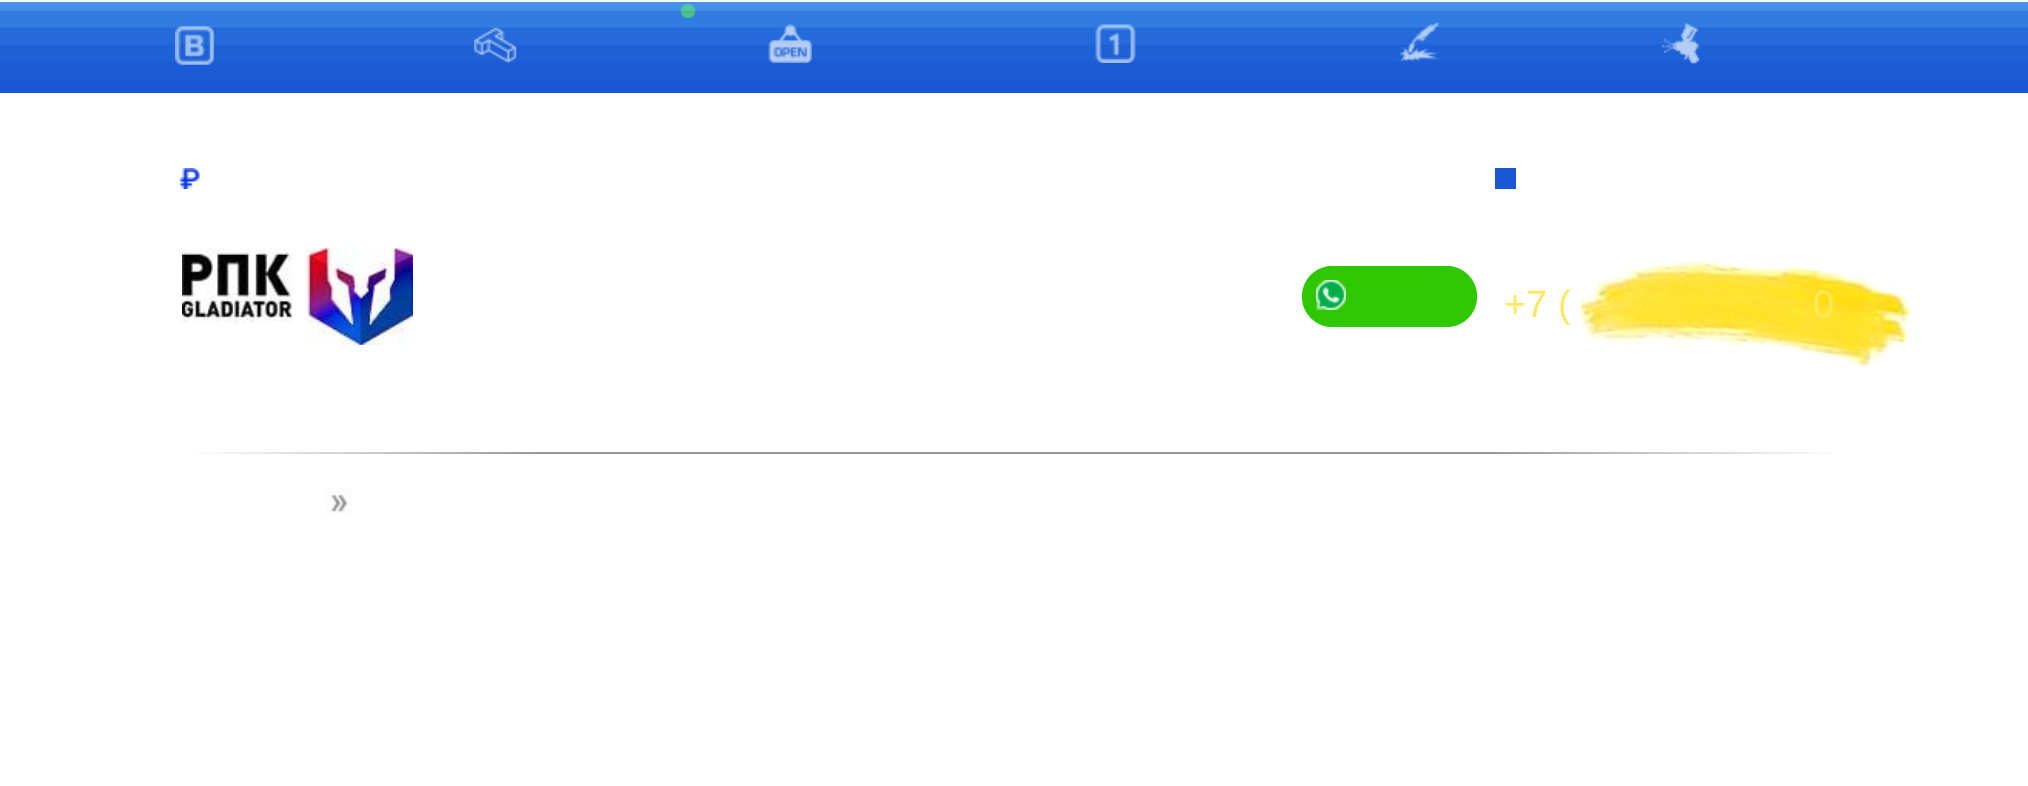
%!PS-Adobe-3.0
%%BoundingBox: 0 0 2028 786
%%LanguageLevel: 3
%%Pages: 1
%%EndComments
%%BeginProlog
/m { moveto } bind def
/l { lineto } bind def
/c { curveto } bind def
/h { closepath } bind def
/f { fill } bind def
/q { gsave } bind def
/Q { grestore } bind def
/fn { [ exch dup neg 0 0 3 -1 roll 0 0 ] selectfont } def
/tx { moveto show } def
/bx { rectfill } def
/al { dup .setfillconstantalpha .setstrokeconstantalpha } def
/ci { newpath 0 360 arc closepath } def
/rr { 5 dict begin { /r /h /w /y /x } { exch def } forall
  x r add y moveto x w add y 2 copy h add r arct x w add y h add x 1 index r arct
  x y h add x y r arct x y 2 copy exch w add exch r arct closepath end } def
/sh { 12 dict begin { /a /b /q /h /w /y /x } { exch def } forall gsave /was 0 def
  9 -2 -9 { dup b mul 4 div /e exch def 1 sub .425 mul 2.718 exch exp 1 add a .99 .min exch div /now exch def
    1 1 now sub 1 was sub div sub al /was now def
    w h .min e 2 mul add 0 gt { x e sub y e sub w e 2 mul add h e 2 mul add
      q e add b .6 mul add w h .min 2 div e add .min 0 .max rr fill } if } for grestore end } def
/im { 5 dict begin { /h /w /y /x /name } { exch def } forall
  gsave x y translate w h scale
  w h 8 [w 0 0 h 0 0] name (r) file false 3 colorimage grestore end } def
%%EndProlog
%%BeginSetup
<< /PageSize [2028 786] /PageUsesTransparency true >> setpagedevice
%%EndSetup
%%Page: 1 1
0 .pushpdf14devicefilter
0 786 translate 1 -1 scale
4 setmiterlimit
1 setgray
0 0 2028 786 bx
0.094 0.345 0.831 setrgbcolor
0 2 2028 91 bx
0.216 0.722 0.31 setrgbcolor
688 11 7 ci f
(image0.raw) 175 26 40 39 im
(image1.raw) 474 27 43 36 im
(image2.raw) 768 24 44 39 im
(image3.raw) 1095 24 41 39 im
(image4.raw) 1399 22 40 40 im
(image5.raw) 1662 22 38 42 im
q
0 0 m 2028 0 l 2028 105 l 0 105 l h -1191 -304 m 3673 -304 l 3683 -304 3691 -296 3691 -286 c 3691 -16 l 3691 -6 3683 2 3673 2 c -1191 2 l -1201 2 -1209 -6 -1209 -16 c -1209 -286 l -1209 -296 -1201 -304 -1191 -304 c h eoclip newpath
0.439 0.812 1 setrgbcolor
-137 -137 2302 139 35 34 1 sh
Q
(image6.raw) 180 168 20 21 im
0.094 0.345 0.831 setrgbcolor
1495 168 21 21 bx
(image7.raw) 182 248 231 97 im
0.18 0.78 0 setrgbcolor
1302 266 175 61 30.5 rr f
(image8.raw) 1579 250 334 119 im
(image9.raw) 1316 280 30 30 im
/LiberationSans-Regular 38 fn
1 0.91 0.369 setrgbcolor
(+7 \() 1504 317 tx
(0) 1813 317 tx
q 193 452 m 543 452 l 543 454 l 193 454 l h clip newpath
<< /ShadingType 2 /ColorSpace /DeviceRGB /Coords [543 452 193 452] /Extend [true true] /Function << /FunctionType 2 /Domain [0 1] /C0 [0.592 0.592 0.592] /C1 [1 1 1] /N 1 >> >> shfill Q
0.592 setgray
543 452 945 2 bx
q 1488 452 m 1838 452 l 1838 454 l 1488 454 l h clip newpath
<< /ShadingType 2 /ColorSpace /DeviceRGB /Coords [1488 452 1838 452] /Extend [true true] /Function << /FunctionType 2 /Domain [0 1] /C0 [0.592 0.592 0.592] /C1 [1 1 1] /N 1 >> >> shfill Q
(image10.raw) 325 488 27 27 im
.poppdf14devicefilter showpage
%%EOF
